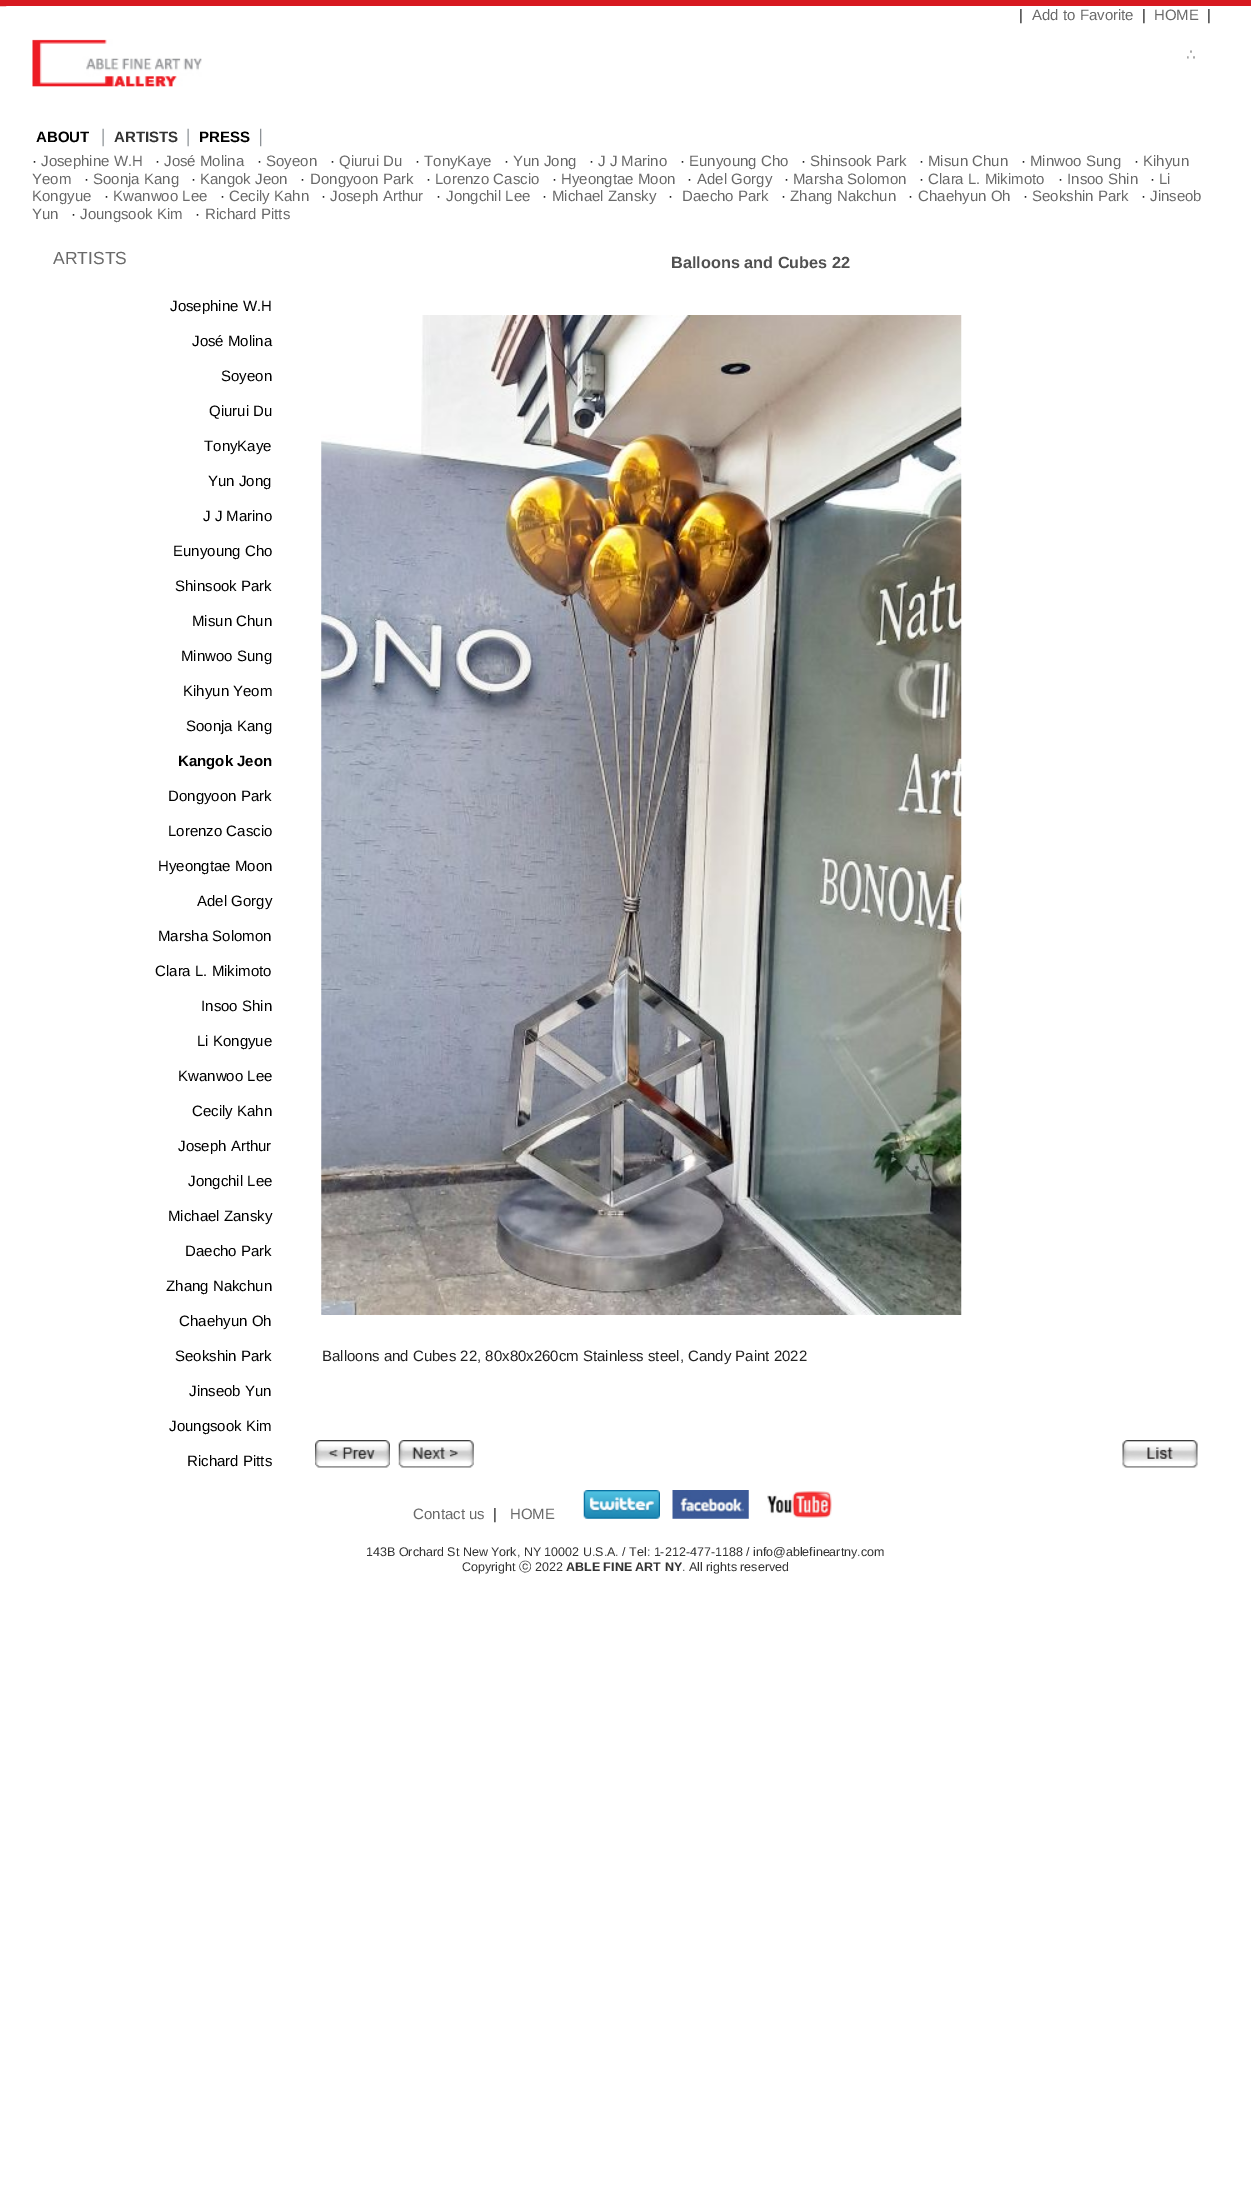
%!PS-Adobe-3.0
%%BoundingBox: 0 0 1251 2204
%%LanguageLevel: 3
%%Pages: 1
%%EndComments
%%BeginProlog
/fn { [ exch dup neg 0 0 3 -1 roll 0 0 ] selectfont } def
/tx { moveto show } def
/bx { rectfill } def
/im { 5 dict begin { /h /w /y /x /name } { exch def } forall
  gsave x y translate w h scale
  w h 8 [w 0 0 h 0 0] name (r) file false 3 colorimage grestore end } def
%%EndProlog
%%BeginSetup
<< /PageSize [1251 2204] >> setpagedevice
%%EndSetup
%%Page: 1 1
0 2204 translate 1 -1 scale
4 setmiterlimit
1 setgray
0 0 1251 2204 bx
0.843 0.098 0.125 setrgbcolor
0 0 1251 6 bx
(image0.raw) 0 6 7 1 im
(image1.raw) 32 39 170 48 im
/LiberationSans-Regular 15 fn
0.133 setgray
(|) 1019 20 tx
0.412 setgray
(Add to Favorite) 1032 20 tx
0.133 setgray
(|) 1142 20 tx
0.412 setgray
(HOME) 1154 20 tx
0.133 setgray
(|) 1207 20 tx
/DejaVuSans-Bold 15 fn
0.663 setgray
(∴) 1186 60 tx
/LiberationSans-Bold 15 fn
0 setgray
(ABOUT) 36 142 tx
(image2.raw) 102 128 2 19 im
0.2 setgray
(ARTISTS) 114 142 tx
(image2.raw) 187 128 2 19 im
0 setgray
(PRESS) 199 142 tx
(image3.raw) 260 128 2 19 im
/LiberationSans-Regular 15 fn
0.133 setgray
(·) 32 166 tx
0.412 setgray
(Josephine W.H) 41 166 tx
0.133 setgray
(·) 155 166 tx
0.412 setgray
(José Molina) 164 166 tx
0.133 setgray
(·) 257 166 tx
0.412 setgray
(Soyeon) 266 166 tx
0.133 setgray
(·) 330 166 tx
0.412 setgray
(Qiurui Du) 339 166 tx
0.133 setgray
(·) 415 166 tx
0.412 setgray
(TonyKaye) 424 166 tx
0.133 setgray
(·) 504 166 tx
0.412 setgray
(Yun Jong) 513 166 tx
0.133 setgray
(·) 589 166 tx
0.412 setgray
(J J Marino) 598 166 tx
0.133 setgray
(·) 680 166 tx
0.412 setgray
(Eunyoung Cho) 689 166 tx
0.133 setgray
(·) 801 166 tx
0.412 setgray
(Shinsook Park) 810 166 tx
0.133 setgray
(·) 919 166 tx
0.412 setgray
(Misun Chun) 928 166 tx
0.133 setgray
(·) 1021 166 tx
0.412 setgray
(Minwoo Sung) 1030 166 tx
0.133 setgray
(·) 1134 166 tx
0.412 setgray
(Kihyun) 1143 166 tx
(Yeom) 32 184 tx
0.133 setgray
(·) 84 184 tx
0.412 setgray
(Soonja Kang) 93 184 tx
0.133 setgray
(·) 191 184 tx
0.412 setgray
(Kangok Jeon) 200 184 tx
0.133 setgray
(·) 300 184 tx
0.412 setgray
(Dongyoon Park) 310 184 tx
0.133 setgray
(·) 426 184 tx
0.412 setgray
(Lorenzo Cascio) 435 184 tx
0.133 setgray
(·) 552 184 tx
0.412 setgray
(Hyeongtae Moon) 561 184 tx
0.133 setgray
(·) 687 184 tx
0.412 setgray
(Adel Gorgy) 697 184 tx
0.133 setgray
(·) 784 184 tx
0.412 setgray
(Marsha Solomon) 793 184 tx
0.133 setgray
(·) 919 184 tx
0.412 setgray
(Clara L. Mikimoto) 928 184 tx
0.133 setgray
(·) 1058 184 tx
0.412 setgray
(Insoo Shin) 1067 184 tx
0.133 setgray
(·) 1150 184 tx
0.412 setgray
(Li) 1159 184 tx
(Kongyue) 32 201 tx
0.133 setgray
(·) 104 201 tx
0.412 setgray
(Kwanwoo Lee) 113 201 tx
0.133 setgray
(·) 220 201 tx
0.412 setgray
(Cecily Kahn) 229 201 tx
0.133 setgray
(·) 321 201 tx
0.412 setgray
(Joseph Arthur) 330 201 tx
0.133 setgray
(·) 436 201 tx
0.412 setgray
(Jongchil Lee) 446 201 tx
0.133 setgray
(·) 542 201 tx
0.412 setgray
(Michael Zansky) 552 201 tx
0.133 setgray
(·) 668 201 tx
0.412 setgray
(Daecho Park) 682 201 tx
0.133 setgray
(·) 781 201 tx
0.412 setgray
(Zhang Nakchun) 790 201 tx
0.133 setgray
(·) 908 201 tx
0.412 setgray
(Chaehyun Oh) 918 201 tx
0.133 setgray
(·) 1023 201 tx
0.412 setgray
(Seokshin Park) 1032 201 tx
0.133 setgray
(·) 1141 201 tx
0.412 setgray
(Jinseob) 1150 201 tx
(Yun) 32 219 tx
0.133 setgray
(·) 71 219 tx
0.412 setgray
(Joungsook Kim) 80 219 tx
0.133 setgray
(·) 195 219 tx
0.412 setgray
(Richard Pitts) 205 219 tx
/LiberationSans-Regular 17.5 fn
(ARTISTS) 53 264 tx
/LiberationSans-Regular 15 fn
0 setgray
(Josephine W.H) 170 311 tx
(José Molina) 192 346 tx
(Soyeon) 221 381 tx
(Qiurui Du) 209 416 tx
(TonyKaye) 204 451 tx
(Yun Jong) 208 486 tx
(J J Marino) 203 521 tx
(Eunyoung Cho) 173 556 tx
(Shinsook Park) 175 591 tx
(Misun Chun) 192 626 tx
(Minwoo Sung) 181 661 tx
(Kihyun Yeom) 183 696 tx
(Soonja Kang) 186 731 tx
/LiberationSans-Bold 15 fn
(Kangok Jeon) 178 766 tx
/LiberationSans-Regular 15 fn
(Dongyoon Park) 168 801 tx
(Lorenzo Cascio) 168 836 tx
(Hyeongtae Moon) 158 871 tx
(Adel Gorgy) 197 906 tx
(Marsha Solomon) 158 941 tx
(Clara L. Mikimoto) 155 976 tx
(Insoo Shin) 201 1011 tx
(Li Kongyue) 197 1046 tx
(Kwanwoo Lee) 178 1081 tx
(Cecily Kahn) 192 1116 tx
(Joseph Arthur) 178 1151 tx
(Jongchil Lee) 188 1186 tx
(Michael Zansky) 168 1221 tx
(Daecho Park) 185 1256 tx
(Zhang Nakchun) 166 1291 tx
(Chaehyun Oh) 179 1326 tx
(Seokshin Park) 175 1361 tx
(Jinseob Yun) 189 1396 tx
(Joungsook Kim) 169 1431 tx
(Richard Pitts) 187 1466 tx
/LiberationSans-Bold 16.25 fn
0.314 setgray
(Balloons and Cubes 22) 671 268 tx
(image4.raw) 321 315 641 1000 im
/LiberationSans-Regular 15 fn
0.133 setgray
(Balloons and Cubes 22, 80x80x260cm Stainless steel, Candy Paint 2022) 322 1361 tx
(image5.raw) 315 1440 75 28 im
(image6.raw) 398 1440 76 28 im
(image7.raw) 1122 1440 76 28 im
0.412 setgray
(Contact us) 413 1519 tx
0.133 setgray
(|) 493 1519 tx
0.412 setgray
(HOME) 510 1519 tx
(image8.raw) 583 1490 77 29 im
(image9.raw) 672 1490 77 29 im
(image10.raw) 767 1490 65 28 im
/LiberationSans-Regular 12.5 fn
0.2 setgray
(143B Orchard St New York, NY 10002 U.S.A. / Tel: 1-212-477-1188 / info@ablefineartny.com) 366 1556 tx
(Copyright) 462 1571 tx
/WenQuanYiZenHei-Medium 12.5 fn
(ⓒ) 519 1571 tx
/LiberationSans-Regular 12.5 fn
(2022) 535 1571 tx
/LiberationSans-Bold 12.5 fn
(ABLE FINE ART NY) 566 1571 tx
/LiberationSans-Regular 12.5 fn
(. All rights reserved) 682 1571 tx
showpage
%%EOF
